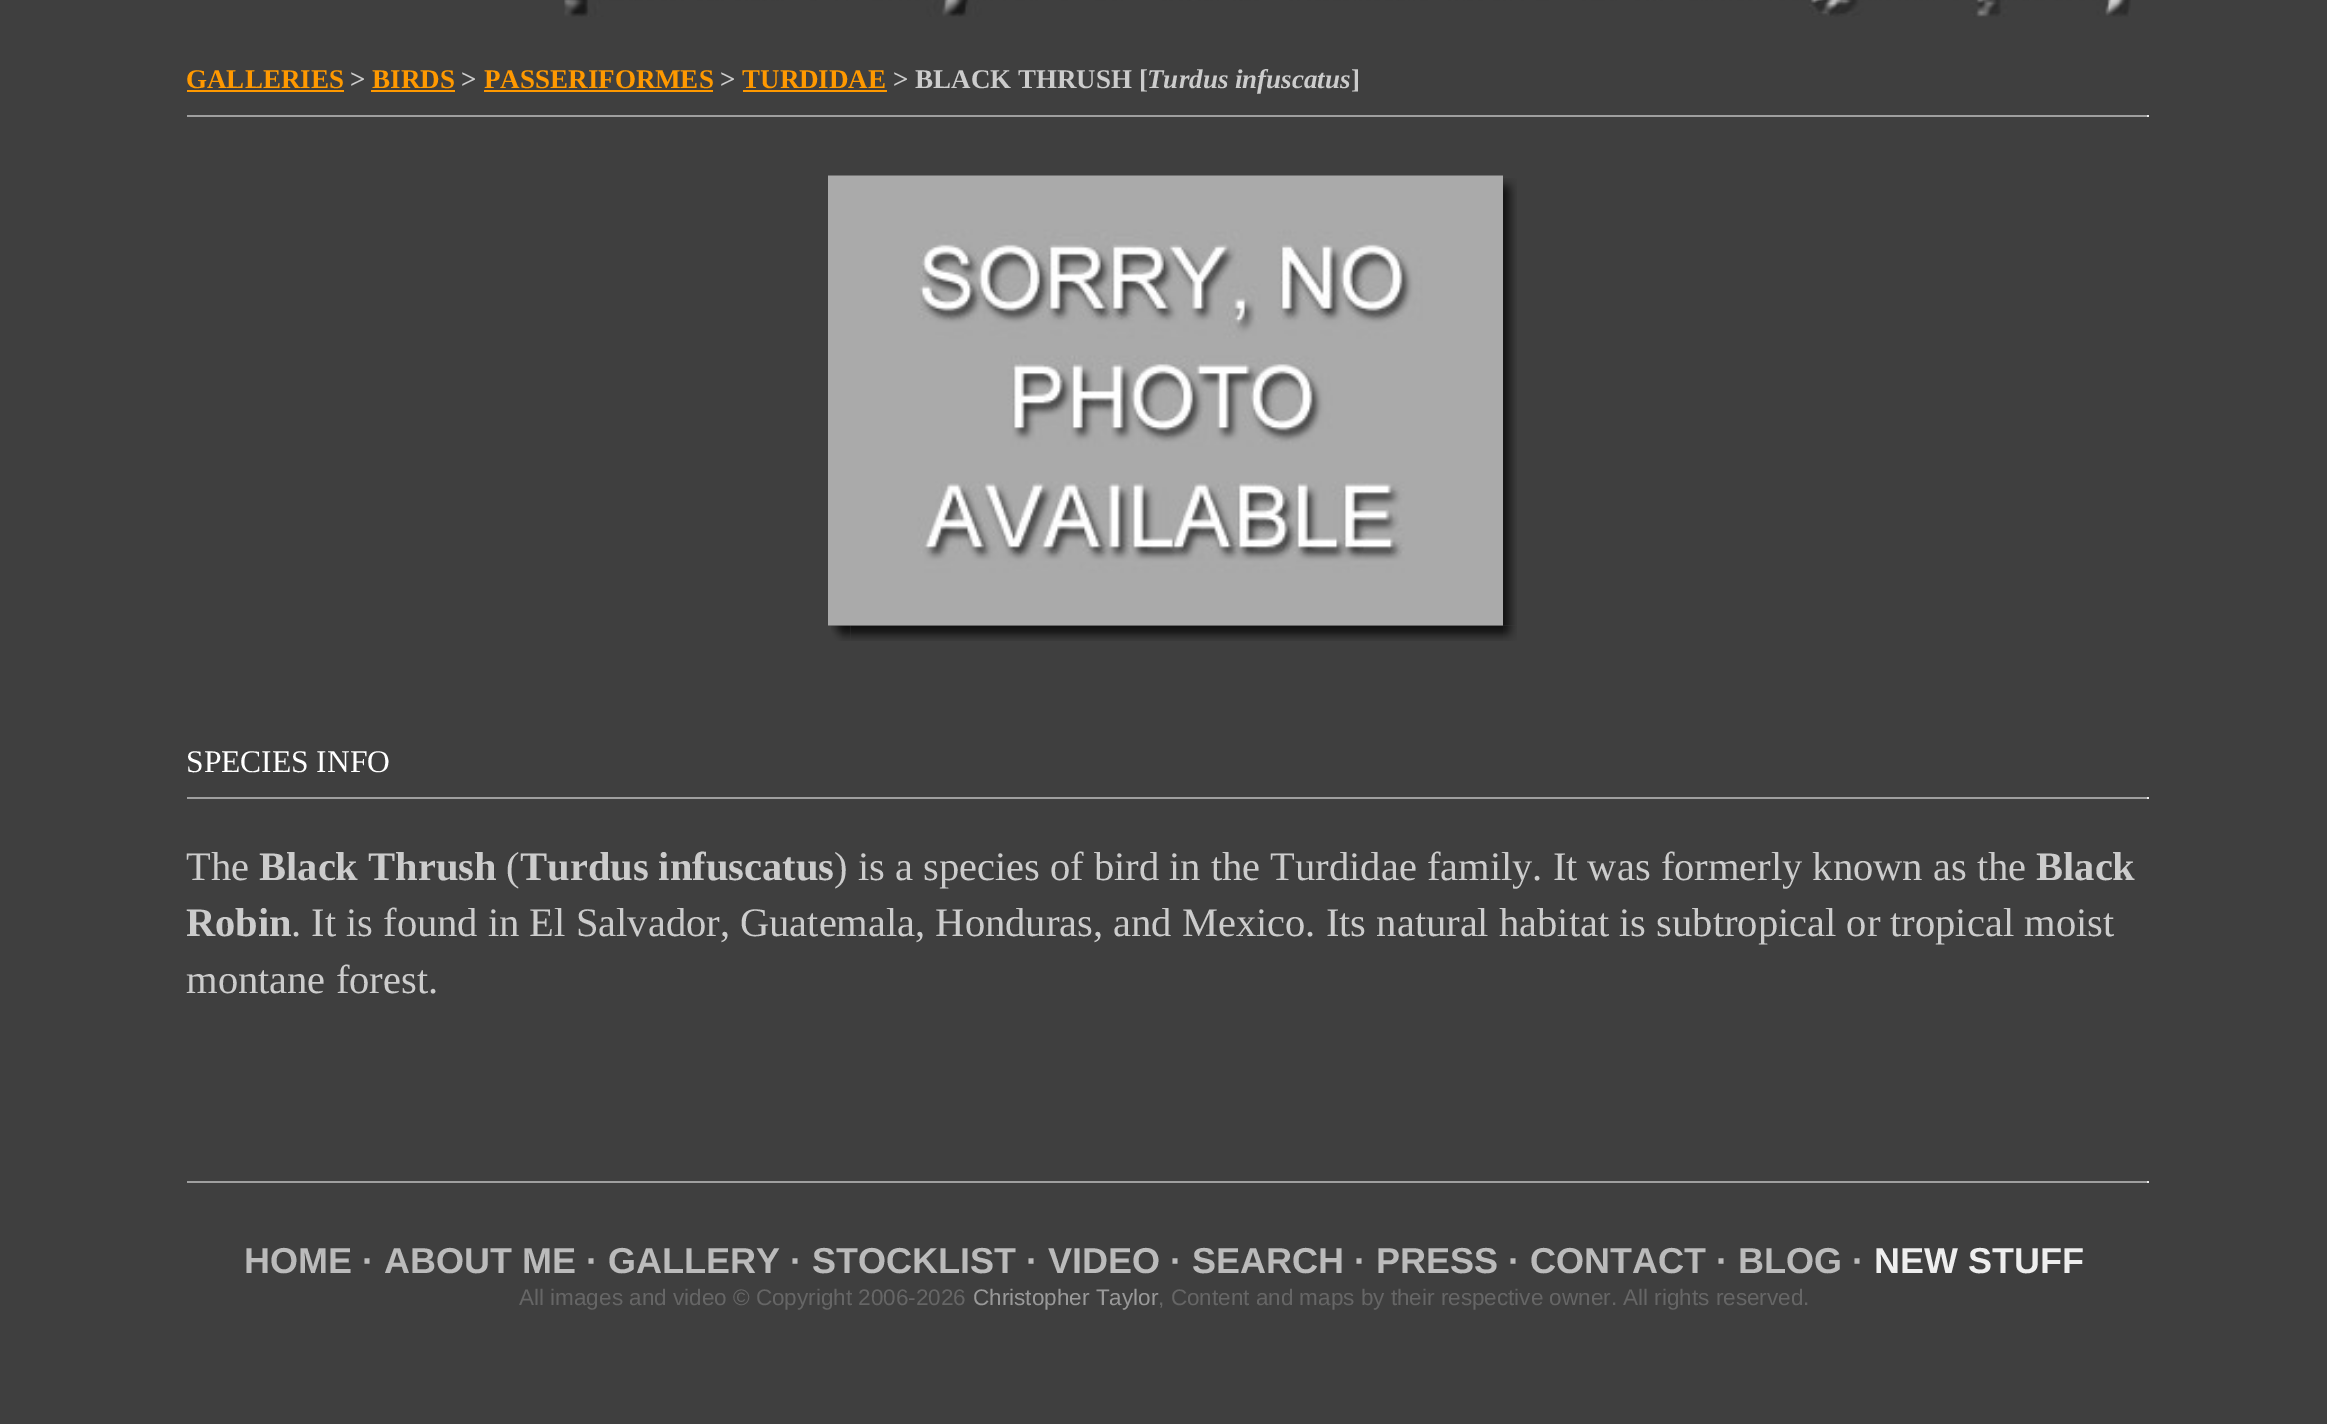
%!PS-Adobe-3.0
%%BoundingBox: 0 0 2327 1424
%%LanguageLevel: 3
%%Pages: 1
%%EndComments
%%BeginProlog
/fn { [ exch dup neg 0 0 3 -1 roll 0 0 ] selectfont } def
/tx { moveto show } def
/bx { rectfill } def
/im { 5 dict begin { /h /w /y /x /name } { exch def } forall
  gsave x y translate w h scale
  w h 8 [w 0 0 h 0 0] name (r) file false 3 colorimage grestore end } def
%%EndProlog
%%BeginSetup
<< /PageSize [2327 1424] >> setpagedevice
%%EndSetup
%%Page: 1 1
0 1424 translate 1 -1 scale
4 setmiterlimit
0.247 setgray
0 0 2327 1424 bx
(image0.raw) 564 0 1567 17 im
/LiberationSerif-Bold 27 fn
1 0.6 0 setrgbcolor
(GALLERIES) 186 88 tx
187 90 157 2 bx
0.8 setgray
(>) 350 88 tx
1 0.6 0 setrgbcolor
(BIRDS) 372 88 tx
371 90 84 2 bx
0.8 setgray
(>) 461 88 tx
1 0.6 0 setrgbcolor
(PASSERIFORMES) 484 88 tx
484 90 229 2 bx
0.8 setgray
(>) 720 88 tx
1 0.6 0 setrgbcolor
(TURDIDAE) 742 88 tx
743 90 144 2 bx
0.8 setgray
(> BLACK THRUSH [) 893 88 tx
/LiberationSerif-BoldItalic 27 fn
(Turdus infuscatus) 1147 88 tx
/LiberationSerif-Bold 27 fn
(]) 1351 88 tx
0.624 setgray
187 115 1962 2 bx
0.933 setgray
2147 115 2 2 bx
(image4.raw) 831 625 20 16 im
(image5.raw) 850 625 653 16 im
(image1.raw) 828 175 675 451 im
(image2.raw) 1503 178 14 20 im
(image3.raw) 1503 198 14 428 im
(image6.raw) 1503 625 14 16 im
/LiberationSerif-Regular 31.5 fn
1 setgray
(SPECIES INFO) 186 772 tx
0.624 setgray
187 797 1962 2 bx
0.933 setgray
2147 797 2 2 bx
/LiberationSerif-Regular 40.5 fn
0.8 setgray
(The) 186 880 tx
/LiberationSerif-Bold 40.5 fn
(Black Thrush) 259 880 tx
/LiberationSerif-Regular 40.5 fn
(\() 506 880 tx
/LiberationSerif-Bold 40.5 fn
(Turdus infuscatus) 520 880 tx
/LiberationSerif-Regular 40.5 fn
(\) is a species of bird in the Turdidae family. It was formerly known as the) 834 880 tx
/LiberationSerif-Bold 40.5 fn
(Black) 2036 880 tx
(Robin) 186 936 tx
/LiberationSerif-Regular 40.5 fn
(. It is found in El Salvador, Guatemala, Honduras, and Mexico. Its natural habitat is subtropical or tropical moist) 291 936 tx
(montane forest.) 186 993 tx
0.624 setgray
187 1181 1962 2 bx
0.933 setgray
2147 1181 2 2 bx
/LiberationSans-Bold 36 fn
0.733 setgray
(HOME · ABOUT ME · GALLERY · STOCKLIST · VIDEO · SEARCH · PRESS · CONTACT · BLOG ·) 244 1273 tx
0.933 setgray
(NEW STUFF) 1874 1273 tx
/LiberationSans-Regular 22.5 fn
0.4 setgray
(All images and video © Copyright 2006-2026) 519 1305 tx
0.6 setgray
(Christopher Taylor) 973 1305 tx
0.4 setgray
(, Content and maps by their respective owner. All rights reserved.) 1158 1305 tx
showpage
%%EOF
